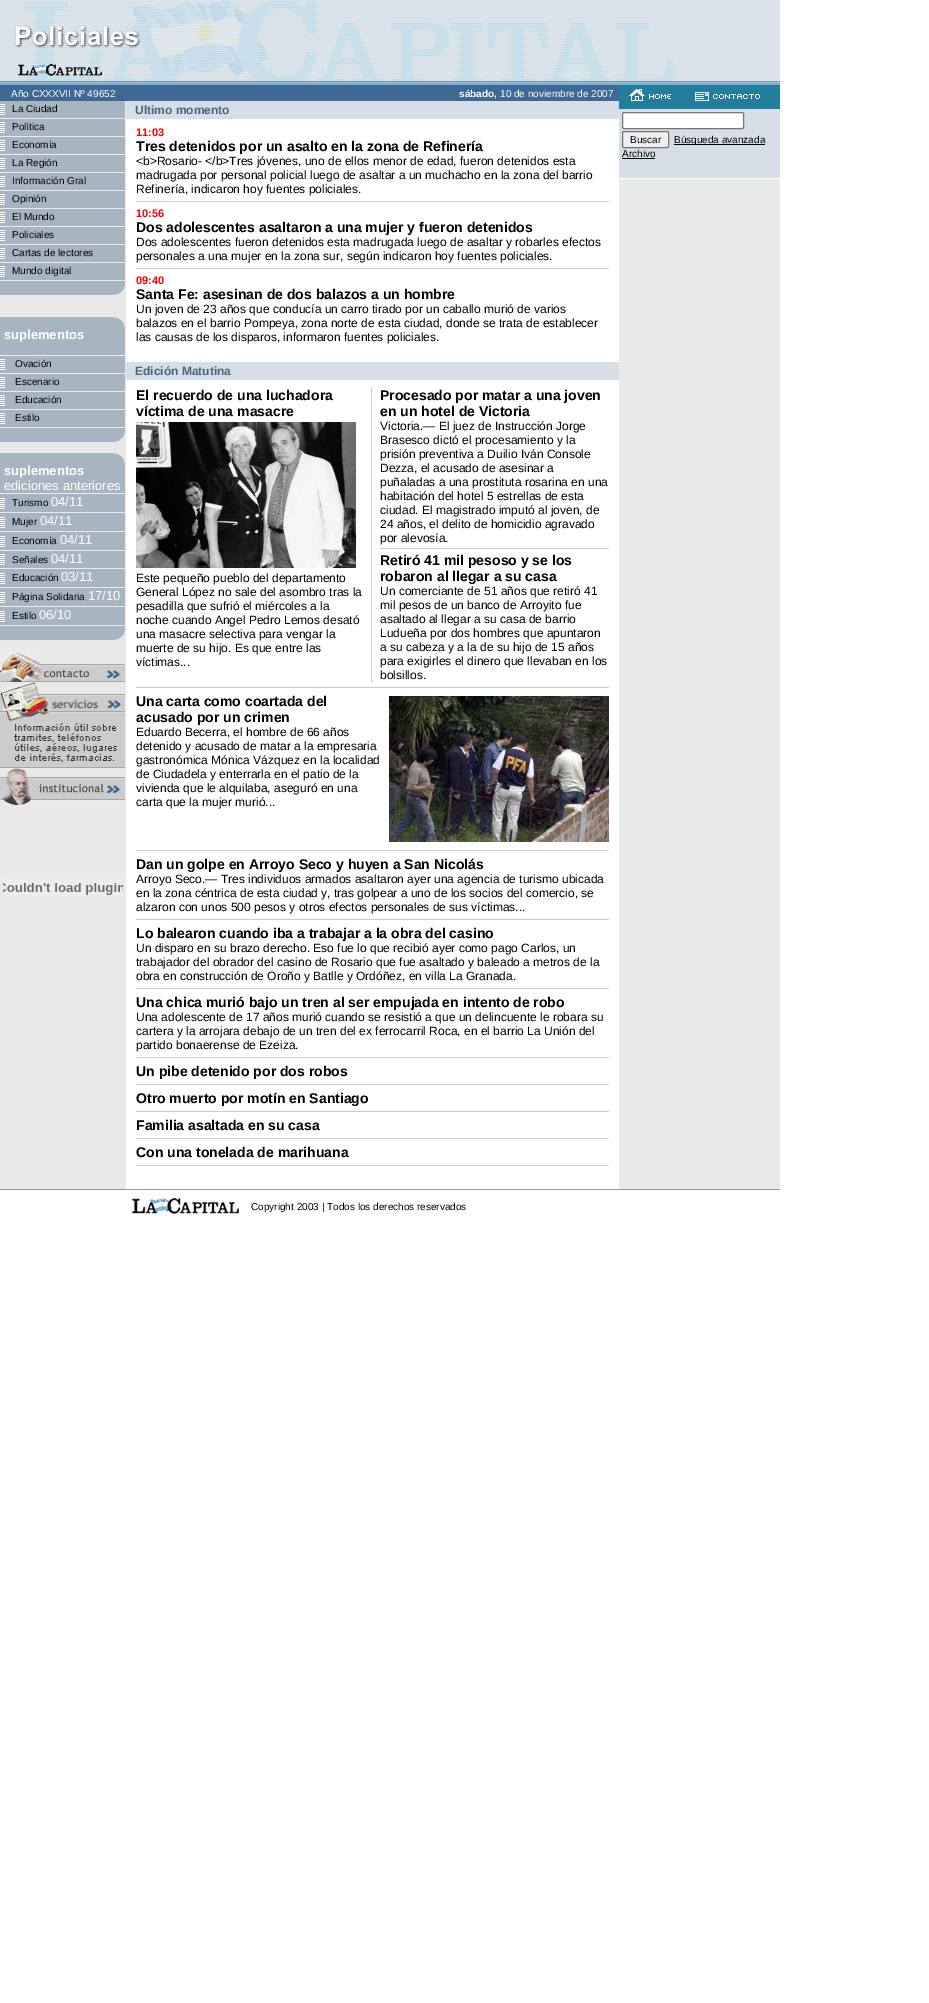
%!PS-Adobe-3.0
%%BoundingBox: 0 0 929 2003
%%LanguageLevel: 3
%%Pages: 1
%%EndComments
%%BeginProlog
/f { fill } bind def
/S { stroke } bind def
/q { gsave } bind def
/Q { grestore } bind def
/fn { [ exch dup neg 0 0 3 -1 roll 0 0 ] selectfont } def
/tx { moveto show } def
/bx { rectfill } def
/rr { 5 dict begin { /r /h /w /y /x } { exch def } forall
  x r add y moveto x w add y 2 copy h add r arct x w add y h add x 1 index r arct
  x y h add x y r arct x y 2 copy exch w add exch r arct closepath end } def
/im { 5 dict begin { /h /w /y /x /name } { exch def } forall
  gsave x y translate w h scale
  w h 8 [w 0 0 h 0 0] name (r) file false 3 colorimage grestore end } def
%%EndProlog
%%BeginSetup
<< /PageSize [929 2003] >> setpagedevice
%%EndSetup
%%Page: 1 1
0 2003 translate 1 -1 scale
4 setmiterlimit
1 setgray
0 0 929 2003 bx
(image0.raw) 0 0 780 85 im
0.914 setgray
0 101 126 1088 bx
0.243 0.412 0.584 setrgbcolor
0 85 619 16 bx
/LiberationSans-Regular 10 fn
1 setgray
(Año CXXXVII Nº 49652) 11 97 tx
0.655 0.71 0.765 setrgbcolor
0 101 125 194 bx
(image1.raw) 0 104 5 11 im
0 setgray
(La Ciudad) 12 112 tx
0.914 setgray
0 118 125 1 bx
(image1.raw) 0 122 5 11 im
0 setgray
(Política) 12 130 tx
0.914 setgray
0 136 125 1 bx
(image1.raw) 0 140 5 11 im
0 setgray
(Economía) 12 148 tx
0.914 setgray
0 154 125 1 bx
(image1.raw) 0 158 5 11 im
0 setgray
(La Región) 12 166 tx
0.914 setgray
0 172 125 1 bx
(image1.raw) 0 176 5 11 im
0 setgray
(Información Gral) 12 184 tx
0.914 setgray
0 190 125 1 bx
(image1.raw) 0 194 5 11 im
0 setgray
(Opinión) 12 202 tx
0.914 setgray
0 208 125 1 bx
(image1.raw) 0 212 5 11 im
0 setgray
(El Mundo) 12 220 tx
0.914 setgray
0 226 125 1 bx
(image1.raw) 0 230 5 11 im
0 setgray
(Policiales) 12 238 tx
0.914 setgray
0 244 125 1 bx
(image1.raw) 0 248 5 11 im
0 setgray
(Cartas de lectores) 12 256 tx
0.914 setgray
0 262 125 1 bx
(image1.raw) 0 266 5 11 im
0 setgray
(Mundo digital) 12 274 tx
0.914 setgray
0 280 125 1 bx
(image2.raw) 114 285 11 10 im
0.655 0.71 0.765 setrgbcolor
0 317 125 125 bx
(image3.raw) 114 317 11 10 im
/LiberationSans-Bold 13 fn
1 setgray
(suplementos) 4 339 tx
0.914 setgray
0 355 125 1 bx
(image1.raw) 0 359 5 11 im
/LiberationSans-Regular 10 fn
0 setgray
(Ovación) 15 367 tx
0.914 setgray
0 373 125 1 bx
(image1.raw) 0 377 5 11 im
0 setgray
(Escenario) 15 385 tx
0.914 setgray
0 391 125 1 bx
(image1.raw) 0 395 5 11 im
0 setgray
(Educación) 15 403 tx
0.914 setgray
0 409 125 1 bx
(image1.raw) 0 413 5 11 im
0 setgray
(Estilo) 15 421 tx
0.914 setgray
0 427 125 1 bx
(image2.raw) 114 432 11 10 im
0.655 0.71 0.765 setrgbcolor
0 453 125 187 bx
(image3.raw) 114 453 11 10 im
/LiberationSans-Bold 13 fn
1 setgray
(suplementos) 4 475 tx
/LiberationSans-Regular 13 fn
(ediciones anteriores) 4 490 tx
0.914 setgray
0 493 125 1 bx
(image1.raw) 0 498 5 11 im
/LiberationSans-Regular 10 fn
0 setgray
(Turismo) 12 506 tx
/LiberationSans-Regular 13 fn
1 setgray
(04/11) 51 506 tx
0.914 setgray
0 512 125 1 bx
(image1.raw) 0 517 5 11 im
/LiberationSans-Regular 10 fn
0 setgray
(Mujer) 12 525 tx
/LiberationSans-Regular 13 fn
1 setgray
(04/11) 40 525 tx
0.914 setgray
0 531 125 1 bx
(image1.raw) 0 536 5 11 im
/LiberationSans-Regular 10 fn
0 setgray
(Economía) 12 544 tx
/LiberationSans-Regular 13 fn
1 setgray
(04/11) 60 544 tx
0.914 setgray
0 550 125 1 bx
(image1.raw) 0 554 5 11 im
/LiberationSans-Regular 10 fn
0 setgray
(Señales) 12 563 tx
/LiberationSans-Regular 13 fn
1 setgray
(04/11) 51 563 tx
0.914 setgray
0 568 125 1 bx
(image1.raw) 0 573 5 11 im
/LiberationSans-Regular 10 fn
0 setgray
(Educación) 12 581 tx
/LiberationSans-Regular 13 fn
1 setgray
(03/11) 61 581 tx
0.914 setgray
0 587 125 1 bx
(image1.raw) 0 592 5 11 im
/LiberationSans-Regular 10 fn
0 setgray
(Página Solidaria) 12 600 tx
/LiberationSans-Regular 13 fn
1 setgray
(17/10) 88 600 tx
0.914 setgray
0 606 125 1 bx
(image1.raw) 0 611 5 11 im
/LiberationSans-Regular 10 fn
0 setgray
(Estilo) 12 619 tx
/LiberationSans-Regular 13 fn
1 setgray
(06/10) 39 619 tx
0.914 setgray
0 625 125 1 bx
(image2.raw) 114 630 11 10 im
(image4.raw) 0 651 125 31 im
(image5.raw) 0 682 125 86 im
(image6.raw) 0 768 125 37 im
(image7.raw) 3 878 120 18 im
/LiberationSans-Bold 10 fn
1 setgray
(sábado,) 459 97 tx
/LiberationSans-Regular 10 fn
(10 de noviembre de 2007) 500 97 tx
0.839 0.875 0.906 setrgbcolor
126 101 493 18 bx
/LiberationSans-Bold 12 fn
0.29 0.396 0.482 setrgbcolor
(Ultimo momento) 135 114 tx
/LiberationSans-Bold 11 fn
1 0 0 setrgbcolor
(11:03) 136 136 tx
/LiberationSans-Bold 14 fn
0 setgray
(Tres detenidos por un asalto en la zona de Refinería) 136 151 tx
/LiberationSans-Regular 12 fn
(<b>Rosario- </b>Tres jóvenes, uno de ellos menor de edad, fueron detenidos esta) 136 165 tx
(madrugada por personal policial luego de asaltar a un muchacho en la zona del barrio) 136 179 tx
(Refinería, indicaron hoy fuentes policiales.) 136 193 tx
0.8 setgray
136 201 473 1 bx
/LiberationSans-Bold 11 fn
1 0 0 setrgbcolor
(10:56) 136 217 tx
/LiberationSans-Bold 14 fn
0 setgray
(Dos adolescentes asaltaron a una mujer y fueron detenidos) 136 232 tx
/LiberationSans-Regular 12 fn
(Dos adolescentes fueron detenidos esta madrugada luego de asaltar y robarles efectos) 136 246 tx
(personales a una mujer en la zona sur, según indicaron hoy fuentes policiales.) 136 260 tx
0.8 setgray
136 268 473 1 bx
/LiberationSans-Bold 11 fn
1 0 0 setrgbcolor
(09:40) 136 284 tx
/LiberationSans-Bold 14 fn
0 setgray
(Santa Fe: asesinan de dos balazos a un hombre) 136 299 tx
/LiberationSans-Regular 12 fn
(Un joven de 23 años que conducía un carro tirado por un caballo murió de varios) 136 313 tx
(balazos en el barrio Pompeya, zona norte de esta ciudad, donde se trata de establecer) 136 327 tx
(las causas de los disparos, informaron fuentes policiales.) 136 341 tx
0.839 0.875 0.906 setrgbcolor
126 362 493 18 bx
/LiberationSans-Bold 12 fn
0.29 0.396 0.482 setrgbcolor
(Edición Matutina) 135 375 tx
/LiberationSans-Bold 14 fn
0 setgray
(El recuerdo de una luchadora) 136 400 tx
(víctima de una masacre) 136 416 tx
(image8.raw) 136 422 220 146 im
/LiberationSans-Regular 12 fn
(Este pequeño pueblo del departamento) 136 582 tx
(General López no sale del asombro tras la) 136 596 tx
(pesadilla que sufrió el miércoles a la) 136 610 tx
(noche cuando Angel Pedro Lemos desató) 136 624 tx
(una masacre selectiva para vengar la) 136 638 tx
(muerte de su hijo. Es que entre las) 136 652 tx
(víctimas...) 136 666 tx
0.8 setgray
371 387 1 295 bx
/LiberationSans-Bold 14 fn
0 setgray
(Procesado por matar a una joven) 380 400 tx
(en un hotel de Victoria) 380 416 tx
/LiberationSans-Regular 12 fn
(Victoria.— El juez de Instrucción Jorge) 380 430 tx
(Brasesco dictó el procesamiento y la) 380 444 tx
(prisión preventiva a Duilio Iván Console) 380 458 tx
(Dezza, el acusado de asesinar a) 380 472 tx
(puñaladas a una prostituta rosarina en una) 380 486 tx
(habitación del hotel 5 estrellas de esta) 380 500 tx
(ciudad. El magistrado imputó al joven, de) 380 514 tx
(24 años, el delito de homicidio agravado) 380 528 tx
(por alevosía.) 380 542 tx
0.8 setgray
380 548 229 1 bx
/LiberationSans-Bold 14 fn
0 setgray
(Retiró 41 mil pesoso y se los) 380 565 tx
(robaron al llegar a su casa) 380 581 tx
/LiberationSans-Regular 12 fn
(Un comerciante de 51 años que retiró 41) 380 595 tx
(mil pesos de un banco de Arroyito fue) 380 609 tx
(asaltado al llegar a su casa de barrio) 380 623 tx
(Ludueña por dos hombres que apuntaron) 380 637 tx
(a su cabeza y a la de su hijo de 15 años) 380 651 tx
(para exigirles el dinero que llevaban en los) 380 665 tx
(bolsillos.) 380 679 tx
0.8 setgray
136 687 473 1 bx
/LiberationSans-Bold 14 fn
0 setgray
(Una carta como coartada del) 136 706 tx
(image9.raw) 389 696 220 146 im
(acusado por un crimen) 136 722 tx
/LiberationSans-Regular 12 fn
(Eduardo Becerra, el hombre de 66 años) 136 736 tx
(detenido y acusado de matar a la empresaria) 136 750 tx
(gastronómica Mónica Vázquez en la localidad) 136 764 tx
(de Ciudadela y enterrarla en el patio de la) 136 778 tx
(vivienda que le alquilaba, aseguró en una) 136 792 tx
(carta que la mujer murió...) 136 806 tx
0.8 setgray
136 850 473 1 bx
/LiberationSans-Bold 14 fn
0 setgray
(Dan un golpe en Arroyo Seco y huyen a San Nicolás) 136 869 tx
/LiberationSans-Regular 12 fn
(Arroyo Seco.— Tres individuos armados asaltaron ayer una agencia de turismo ubicada) 136 883 tx
(en la zona céntrica de esta ciudad y, tras golpear a uno de los socios del comercio, se) 136 897 tx
(alzaron con unos 500 pesos y otros efectos personales de sus víctimas...) 136 911 tx
0.8 setgray
136 919 473 1 bx
/LiberationSans-Bold 14 fn
0 setgray
(Lo balearon cuando iba a trabajar a la obra del casino) 136 938 tx
/LiberationSans-Regular 12 fn
(Un disparo en su brazo derecho. Eso fue lo que recibió ayer como pago Carlos, un) 136 952 tx
(trabajador del obrador del casino de Rosario que fue asaltado y baleado a metros de la) 136 966 tx
(obra en construcción de Oroño y Batlle y Ordóñez, en villa La Granada.) 136 980 tx
0.8 setgray
136 988 473 1 bx
/LiberationSans-Bold 14 fn
0 setgray
(Una chica murió bajo un tren al ser empujada en intento de robo) 136 1007 tx
/LiberationSans-Regular 12 fn
(Una adolescente de 17 años murió cuando se resistió a que un delincuente le robara su) 136 1021 tx
(cartera y la arrojara debajo de un tren del ex ferrocarril Roca, en el barrio La Unión del) 136 1035 tx
(partido bonaerense de Ezeiza.) 136 1049 tx
0.8 setgray
136 1057 473 1 bx
/LiberationSans-Bold 14 fn
0 setgray
(Un pibe detenido por dos robos) 136 1076 tx
0.8 setgray
136 1084 473 1 bx
0 setgray
(Otro muerto por motín en Santiago) 136 1103 tx
0.8 setgray
136 1111 473 1 bx
0 setgray
(Familia asaltada en su casa) 136 1130 tx
0.8 setgray
136 1138 473 1 bx
0 setgray
(Con una tonelada de marihuana) 136 1157 tx
0.8 setgray
136 1165 473 1 bx
0.914 setgray
619 179 161 1010 bx
0.137 0.494 0.612 setrgbcolor
619 85 161 24 bx
(image10.raw) 629 89 42 12 im
(image11.raw) 695 92 65 9 im
0.839 0.875 0.906 setrgbcolor
619 109 161 69 bx
1 setgray
622.5 112.5 121 16 1.5 rr q f Q
0.463 setgray
S
0.937 setgray
622.5 131.5 46 16 1.5 rr q f Q
0.463 setgray
S
/LiberationSans-Regular 10 fn
0 setgray
(Buscar) 630 143 tx
674 144 91 1 bx
(Búsqueda avanzada) 674 143 tx
(Archivo) 622 157 tx
622 158 33 1 bx
0.6 setgray
0 1189 780 1 bx
(image12.raw) 132 1198 107 16 im
0 setgray
(Copyright 2003 | Todos los derechos reservados) 251 1210 tx
showpage
%%EOF
